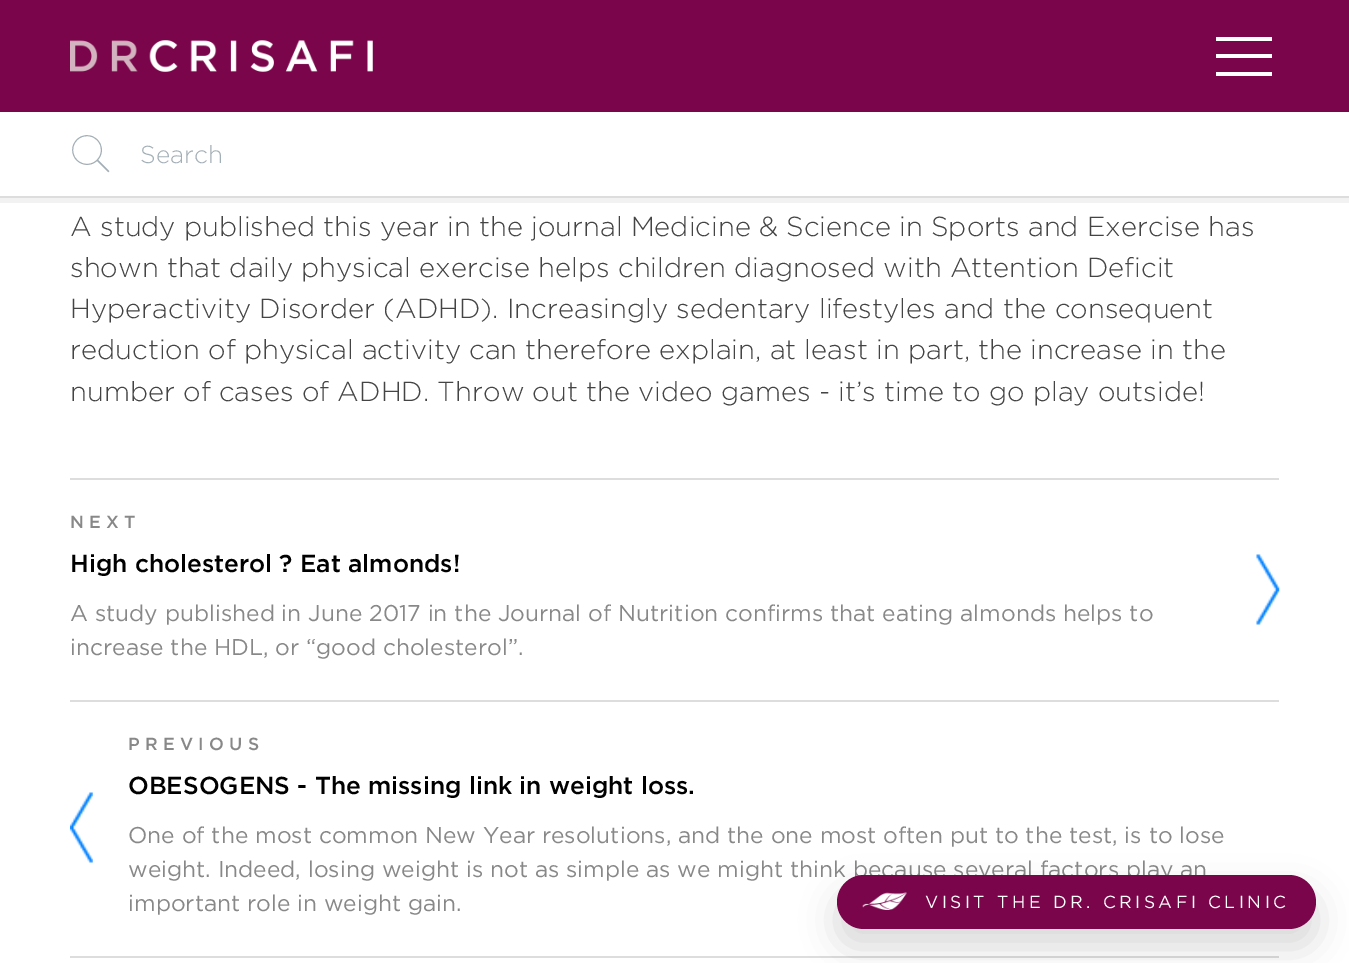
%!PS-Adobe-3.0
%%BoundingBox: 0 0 1349 963
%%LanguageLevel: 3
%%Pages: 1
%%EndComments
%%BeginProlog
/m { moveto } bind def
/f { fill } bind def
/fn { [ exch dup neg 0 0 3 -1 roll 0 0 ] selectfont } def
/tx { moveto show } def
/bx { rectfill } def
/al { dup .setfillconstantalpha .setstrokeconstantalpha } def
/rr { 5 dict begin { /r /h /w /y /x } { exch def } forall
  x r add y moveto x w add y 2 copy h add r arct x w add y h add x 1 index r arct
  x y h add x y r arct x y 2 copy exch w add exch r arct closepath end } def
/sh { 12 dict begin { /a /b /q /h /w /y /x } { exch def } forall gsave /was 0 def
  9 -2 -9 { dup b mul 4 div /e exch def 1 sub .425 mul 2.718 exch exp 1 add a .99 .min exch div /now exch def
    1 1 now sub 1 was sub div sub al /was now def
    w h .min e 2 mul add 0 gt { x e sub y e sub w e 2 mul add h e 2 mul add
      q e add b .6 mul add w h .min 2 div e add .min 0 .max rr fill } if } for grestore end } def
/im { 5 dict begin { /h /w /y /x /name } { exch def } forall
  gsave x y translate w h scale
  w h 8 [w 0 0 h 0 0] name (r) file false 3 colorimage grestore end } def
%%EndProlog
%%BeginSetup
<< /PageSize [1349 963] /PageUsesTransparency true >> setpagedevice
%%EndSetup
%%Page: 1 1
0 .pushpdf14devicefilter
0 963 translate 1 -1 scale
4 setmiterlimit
1 setgray
0 0 1349 963 bx
0.478 0.02 0.29 setrgbcolor
0 0 1349 112 bx
1 setgray
1216 37 56 4 bx
1216 54 56 4 bx
1216 72 56 4 bx
(image0.raw) 70 40 303 32 im
0.949 setgray
0 198 1349 5 bx
0.867 setgray
0 196 1349 2 bx
/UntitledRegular-Regular 38 fn
0.639 0.686 0.714 setrgbcolor
(L) 75 163 tx
/Gotham-Light 24.5 fn
(Search) 140 163 tx
/Gotham-Light 27.45 fn
0.267 setgray
(A study published this year in the journal Medicine & Science in Sports and Exercise has) 70 236 tx
(shown that daily physical exercise helps children diagnosed with Attention Deficit) 70 277 tx
(Hyperactivity Disorder \(ADHD\). Increasingly sedentary lifestyles and the consequent) 70 318 tx
(reduction of physical activity can therefore explain, at least in part, the increase in the) 70 359 tx
(number of cases of ADHD. Throw out the video games - it’s time to go play outside!) 70 401 tx
0.867 setgray
70 478 1209 2 bx
70 956 1209 2 bx
/Gotham-Medium 17.5 fn
0.533 setgray
70 528 m 5.25 0 (NEXT) ashow
/Gotham-Medium 24.5 fn
0 setgray
(High cholesterol ? Eat almonds!) 70 572 tx
/Gotham-Regular 22.75 fn
0.533 setgray
(A study published in June 2017 in the Journal of Nutrition confirms that eating almonds helps to) 70 621 tx
(increase the HDL, or “good cholesterol”.) 70 655 tx
(image1.raw) 1256 554 24 71 im
0.867 setgray
70 700 1209 2 bx
(image2.raw) 70 792 23 71 im
/Gotham-Medium 17.5 fn
0.533 setgray
128 750 m 5.25 0 (PREVIOUS) ashow
/Gotham-Medium 24.5 fn
0 setgray
(OBESOGENS - The missing link in weight loss.) 128 794 tx
/Gotham-Regular 22.75 fn
0.533 setgray
(One of the most common New Year resolutions, and the one most often put to the test, is to lose) 128 843 tx
(weight. Indeed, losing weight is not as simple as we might think because several factors play an) 128 877 tx
(important role in weight gain.) 128 911 tx
0 setgray
837 893 479 54 27 17.5 0.15 sh
0.478 0.02 0.29 setrgbcolor
837 875 479 54 27 rr f
(image3.raw) 862 892 45 18 im
/Gotham-Regular 17.5 fn
1 setgray
925 908 m 3.5 0 (VISIT THE DR. CRISAFI CLINIC) ashow
.poppdf14devicefilter showpage
%%EOF
